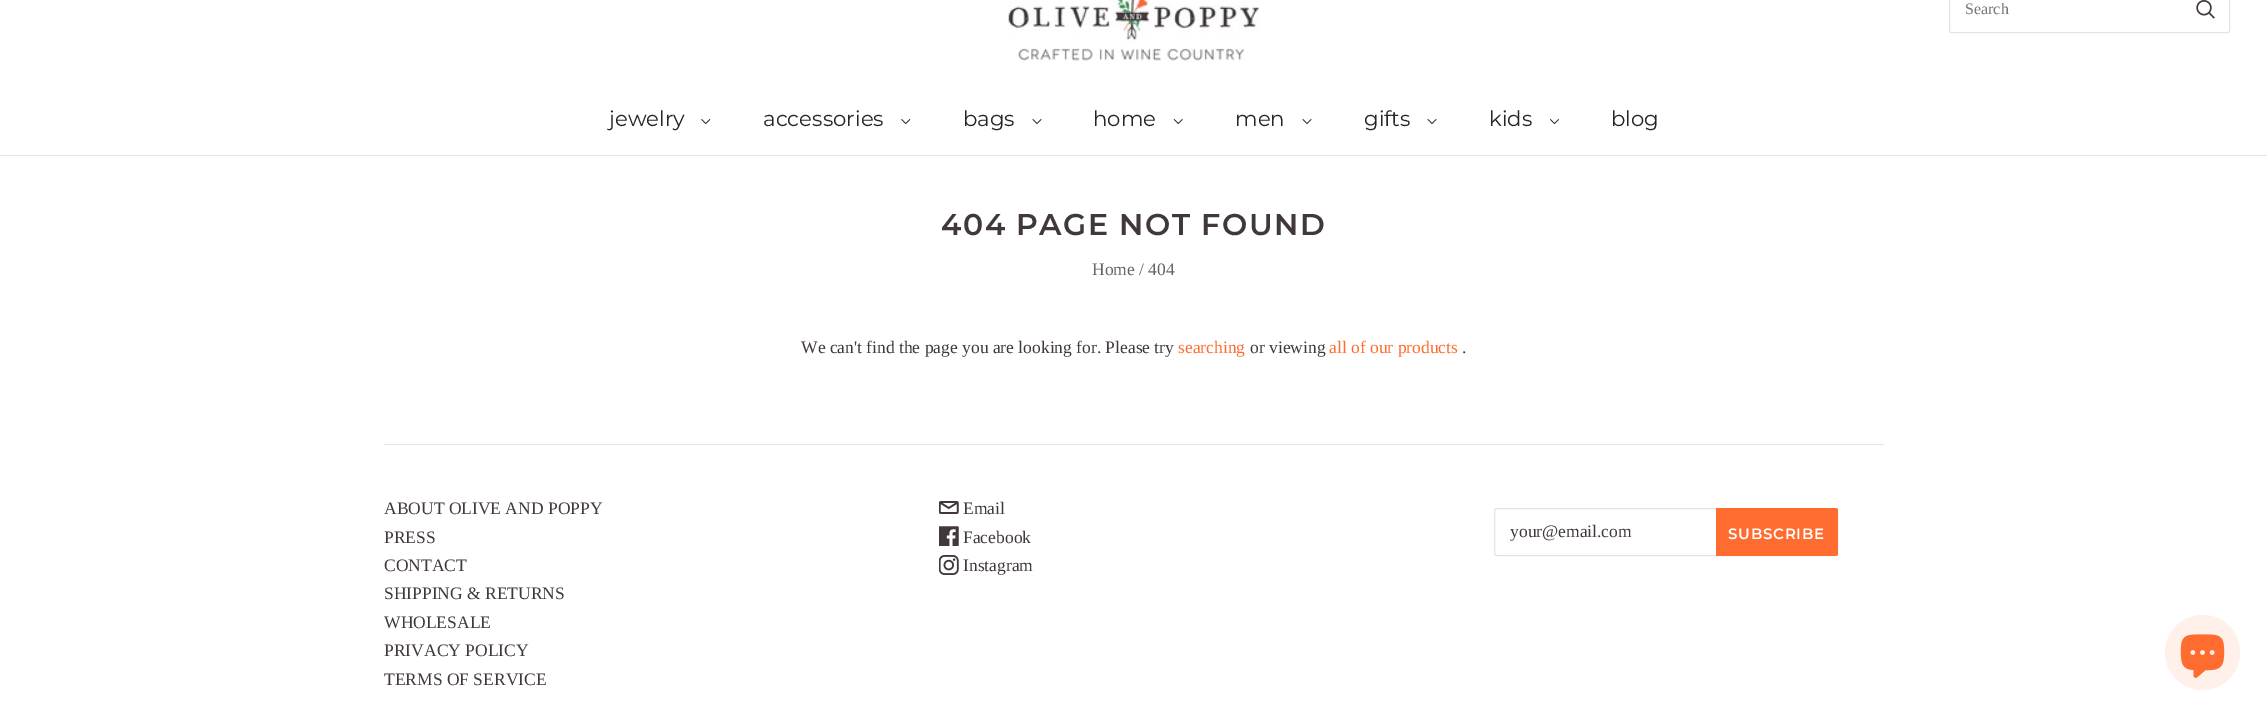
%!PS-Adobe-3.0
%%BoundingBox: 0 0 2267 716
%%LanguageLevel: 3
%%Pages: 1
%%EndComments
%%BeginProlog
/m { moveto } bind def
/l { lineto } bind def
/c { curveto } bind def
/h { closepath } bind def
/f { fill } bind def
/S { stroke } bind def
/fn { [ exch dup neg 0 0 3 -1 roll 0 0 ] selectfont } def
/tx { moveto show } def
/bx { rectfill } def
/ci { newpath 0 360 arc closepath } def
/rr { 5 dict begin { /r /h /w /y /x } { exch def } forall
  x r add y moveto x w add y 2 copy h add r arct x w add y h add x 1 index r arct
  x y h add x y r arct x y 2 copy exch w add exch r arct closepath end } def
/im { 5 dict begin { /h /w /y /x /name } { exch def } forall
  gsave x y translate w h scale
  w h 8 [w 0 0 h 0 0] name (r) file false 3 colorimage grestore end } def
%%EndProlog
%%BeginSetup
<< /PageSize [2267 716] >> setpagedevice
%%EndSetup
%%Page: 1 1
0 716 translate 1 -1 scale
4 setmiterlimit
1 setgray
0 0 2267 716 bx
0.894 setgray
0 155 2267 1 bx
(image0.raw) 1008 0 251 61 im
1949.5 -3.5 280 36 2 rr S
/LiberationSerif-Regular 16 fn
0.459 setgray
(Search) 1965 14 tx
(image1.raw) 2196 0 19 19 im
/Montserrat-Regular 21.25 fn
0.149 setgray
(jewelry) 609 126 tx
(image2.raw) 701 119 10 6 im
(accessories) 763 126 tx
(image2.raw) 901 119 10 6 im
(bags) 963 126 tx
(image3.raw) 1032 119 10 5 im
(home) 1093 126 tx
(image4.raw) 1173 119 10 6 im
(men) 1235 126 tx
(image3.raw) 1302 119 10 5 im
(gifts) 1364 126 tx
(image3.raw) 1427 119 10 5 im
(kids) 1489 126 tx
(image5.raw) 1550 119 9 6 im
(blog) 1611 126 tx
/Montserrat-SemiBold 30 fn
0.255 0.22 0.235 setrgbcolor
941 235 m 1.5 0 (404 PAGE NOT FOUND) ashow
/LiberationSerif-Regular 17.5 fn
0.396 setgray
(Home / 404) 1092 275 tx
0.255 0.22 0.235 setrgbcolor
(We can't find the page you are looking for. Please try) 801 353 tx
1 0.424 0.184 setrgbcolor
(searching) 1178 353 tx
0.255 0.22 0.235 setrgbcolor
(or viewing) 1250 353 tx
1 0.424 0.184 setrgbcolor
(all of our products) 1329 353 tx
0.255 0.22 0.235 setrgbcolor
(.) 1462 353 tx
0.894 setgray
384 444 1500 1 bx
0.255 0.22 0.235 setrgbcolor
(ABOUT OLIVE AND POPPY) 384 514 tx
(PRESS) 384 543 tx
(CONTACT) 384 571 tx
(SHIPPING & RETURNS) 384 599 tx
(WHOLESALE) 384 628 tx
(PRIVACY POLICY) 384 656 tx
(TERMS OF SERVICE) 384 685 tx
(image6.raw) 939 501 20 13 im
(Email) 963 514 tx
(image7.raw) 939 526 20 20 im
(Facebook) 963 543 tx
(image8.raw) 939 555 20 20 im
(Instagram) 963 571 tx
0.894 setgray
1494.5 508.5 343 47 2 rr S
0.255 0.22 0.235 setrgbcolor
(your@email.com) 1510 537 tx
1 0.424 0.184 setrgbcolor
1716 508 m 1835.5 508 l 1837 508 1838 509 1838 510.5 c 1838 553.5 l 1838 555 1837 556 1835.5 556 c 1716 556 l h f
/Montserrat-SemiBold 15 fn
1 setgray
1728 539 m 0.75 0 (SUBSCRIBE) ashow
1 0.941 0.918 setrgbcolor
2202.5 652.5 37.5 ci f
(image9.raw) 2180 634 45 44 im
showpage
%%EOF
